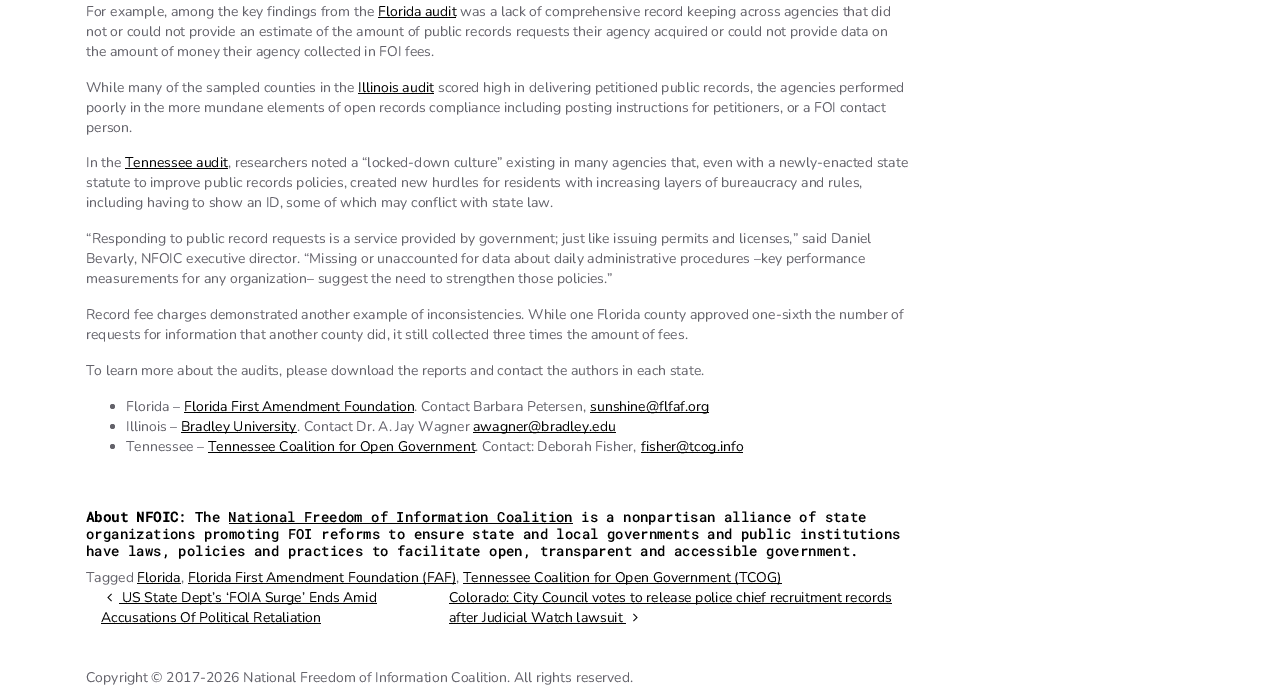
%!PS-Adobe-3.0
%%BoundingBox: 0 0 1282 698
%%LanguageLevel: 3
%%Pages: 1
%%EndComments
%%BeginProlog
/f { fill } bind def
/fn { [ exch dup neg 0 0 3 -1 roll 0 0 ] selectfont } def
/tx { moveto show } def
/bx { rectfill } def
/ci { newpath 0 360 arc closepath } def
/im { 5 dict begin { /h /w /y /x /name } { exch def } forall
  gsave x y translate w h scale
  w h 8 [w 0 0 h 0 0] name (r) file false 3 colorimage grestore end } def
%%EndProlog
%%BeginSetup
<< /PageSize [1282 698] >> setpagedevice
%%EndSetup
%%Page: 1 1
0 698 translate 1 -1 scale
4 setmiterlimit
1 setgray
0 0 1282 698 bx
/Nunito-Regular 14 fn
0.388 0.384 0.416 setrgbcolor
(For example, among the key findings from the) 86 16 tx
0 setgray
(Florida audit) 378 16 tx
378 17 78 1 bx
0.388 0.384 0.416 setrgbcolor
(was a lack of comprehensive record keeping across agencies that did) 460 16 tx
(not or could not provide an estimate of the amount of public records requests their agency acquired or could not provide data on) 86 36 tx
(the amount of money their agency collected in FOI fees.) 86 56 tx
(While many of the sampled counties in the) 86 92 tx
0 setgray
(Illinois audit) 358 92 tx
358 93 76 1 bx
0.388 0.384 0.416 setrgbcolor
(scored high in delivering petitioned public records, the agencies performed) 438 92 tx
(poorly in the more mundane elements of open records compliance including posting instructions for petitioners, or a FOI contact) 86 112 tx
(person.) 86 132 tx
(In the) 86 167 tx
0 setgray
(Tennessee audit) 125 167 tx
0.388 0.384 0.416 setrgbcolor
(, researchers noted a “locked-down culture” existing in many agencies that, even with a newly-enacted state) 228 167 tx
0 setgray
125 168 103 1 bx
0.388 0.384 0.416 setrgbcolor
(statute to improve public records policies, created new hurdles for residents with increasing layers of bureaucracy and rules,) 86 187 tx
(including having to show an ID, some of which may conflict with state law.) 86 207 tx
(“Responding to public record requests is a service provided by government; just like issuing permits and licenses,” said Daniel) 86 243 tx
(Bevarly, NFOIC executive director. “Missing or unaccounted for data about daily administrative procedures –key performance) 86 263 tx
(measurements for any organization– suggest the need to strengthen those policies.”) 86 283 tx
(Record fee charges demonstrated another example of inconsistencies. While one Florida county approved one-sixth the number of) 86 319 tx
(requests for information that another county did, it still collected three times the amount of fees.) 86 339 tx
(To learn more about the audits, please download the reports and contact the authors in each state.) 86 375 tx
112.5 406.5 2.5 ci f
(Florida –) 126 411 tx
0 setgray
(Florida First Amendment Foundation) 184 411 tx
184 412 230 1 bx
0.388 0.384 0.416 setrgbcolor
(. Contact Barbara Petersen,) 414 411 tx
0 setgray
590 412 119 1 bx
(sunshine@flfaf.org) 590 411 tx
0.388 0.384 0.416 setrgbcolor
112.5 426.5 2.5 ci f
(Illinois –) 126 431 tx
0 setgray
181 432 116 1 bx
(Bradley University) 181 431 tx
0.388 0.384 0.416 setrgbcolor
(. Contact Dr. A. Jay Wagner) 297 431 tx
0 setgray
473 432 143 1 bx
(awagner@bradley.edu) 473 431 tx
0.388 0.384 0.416 setrgbcolor
112.5 446.5 2.5 ci f
(Tennessee –) 126 451 tx
0 setgray
208 452 267 1 bx
(Tennessee Coalition for Open Government) 208 451 tx
0.388 0.384 0.416 setrgbcolor
(. Contact: Deborah Fisher,) 475 451 tx
0 setgray
641 452 102 1 bx
(fisher@tcog.info) 641 451 tx
/RobotoMono-Bold 14 fn
(About NFOIC) 86 522 tx
/RobotoMono-Medium 14 fn
(: The National Freedom of Information Coalition is a nonpartisan alliance of state) 178 522 tx
229 523 344 1 bx
(organizations promoting FOI reforms to ensure state and local governments and public institutions) 86 539 tx
(have laws, policies and practices to facilitate open, transparent and accessible government.) 86 556 tx
/Nunito-Regular 14 fn
0.388 0.384 0.416 setrgbcolor
(Tagged) 86 582 tx
0 setgray
(Florida) 137 582 tx
0.388 0.384 0.416 setrgbcolor
(,) 181 582 tx
0 setgray
137 583 44 1 bx
188 583 268 1 bx
(Florida First Amendment Foundation \(FAF\)) 188 582 tx
0.388 0.384 0.416 setrgbcolor
(,) 456 582 tx
0 setgray
463 583 319 1 bx
(Tennessee Coalition for Open Government \(TCOG\)) 463 582 tx
(image0.raw) 107 593 5 9 im
119 603 258 1 bx
(US State Dept’s ‘FOIA Surge’ Ends Amid) 122 602 tx
(Accusations Of Political Retaliation) 101 622 tx
101 623 220 1 bx
449 603 443 1 bx
(Colorado: City Council votes to release police chief recruitment records) 449 602 tx
(after Judicial Watch lawsuit) 449 622 tx
449 623 177 1 bx
(image1.raw) 633 613 5 9 im
0.388 0.384 0.416 setrgbcolor
(Copyright © 2017-2026 National Freedom of Information Coalition. All rights reserved.) 86 682 tx
showpage
%%EOF
